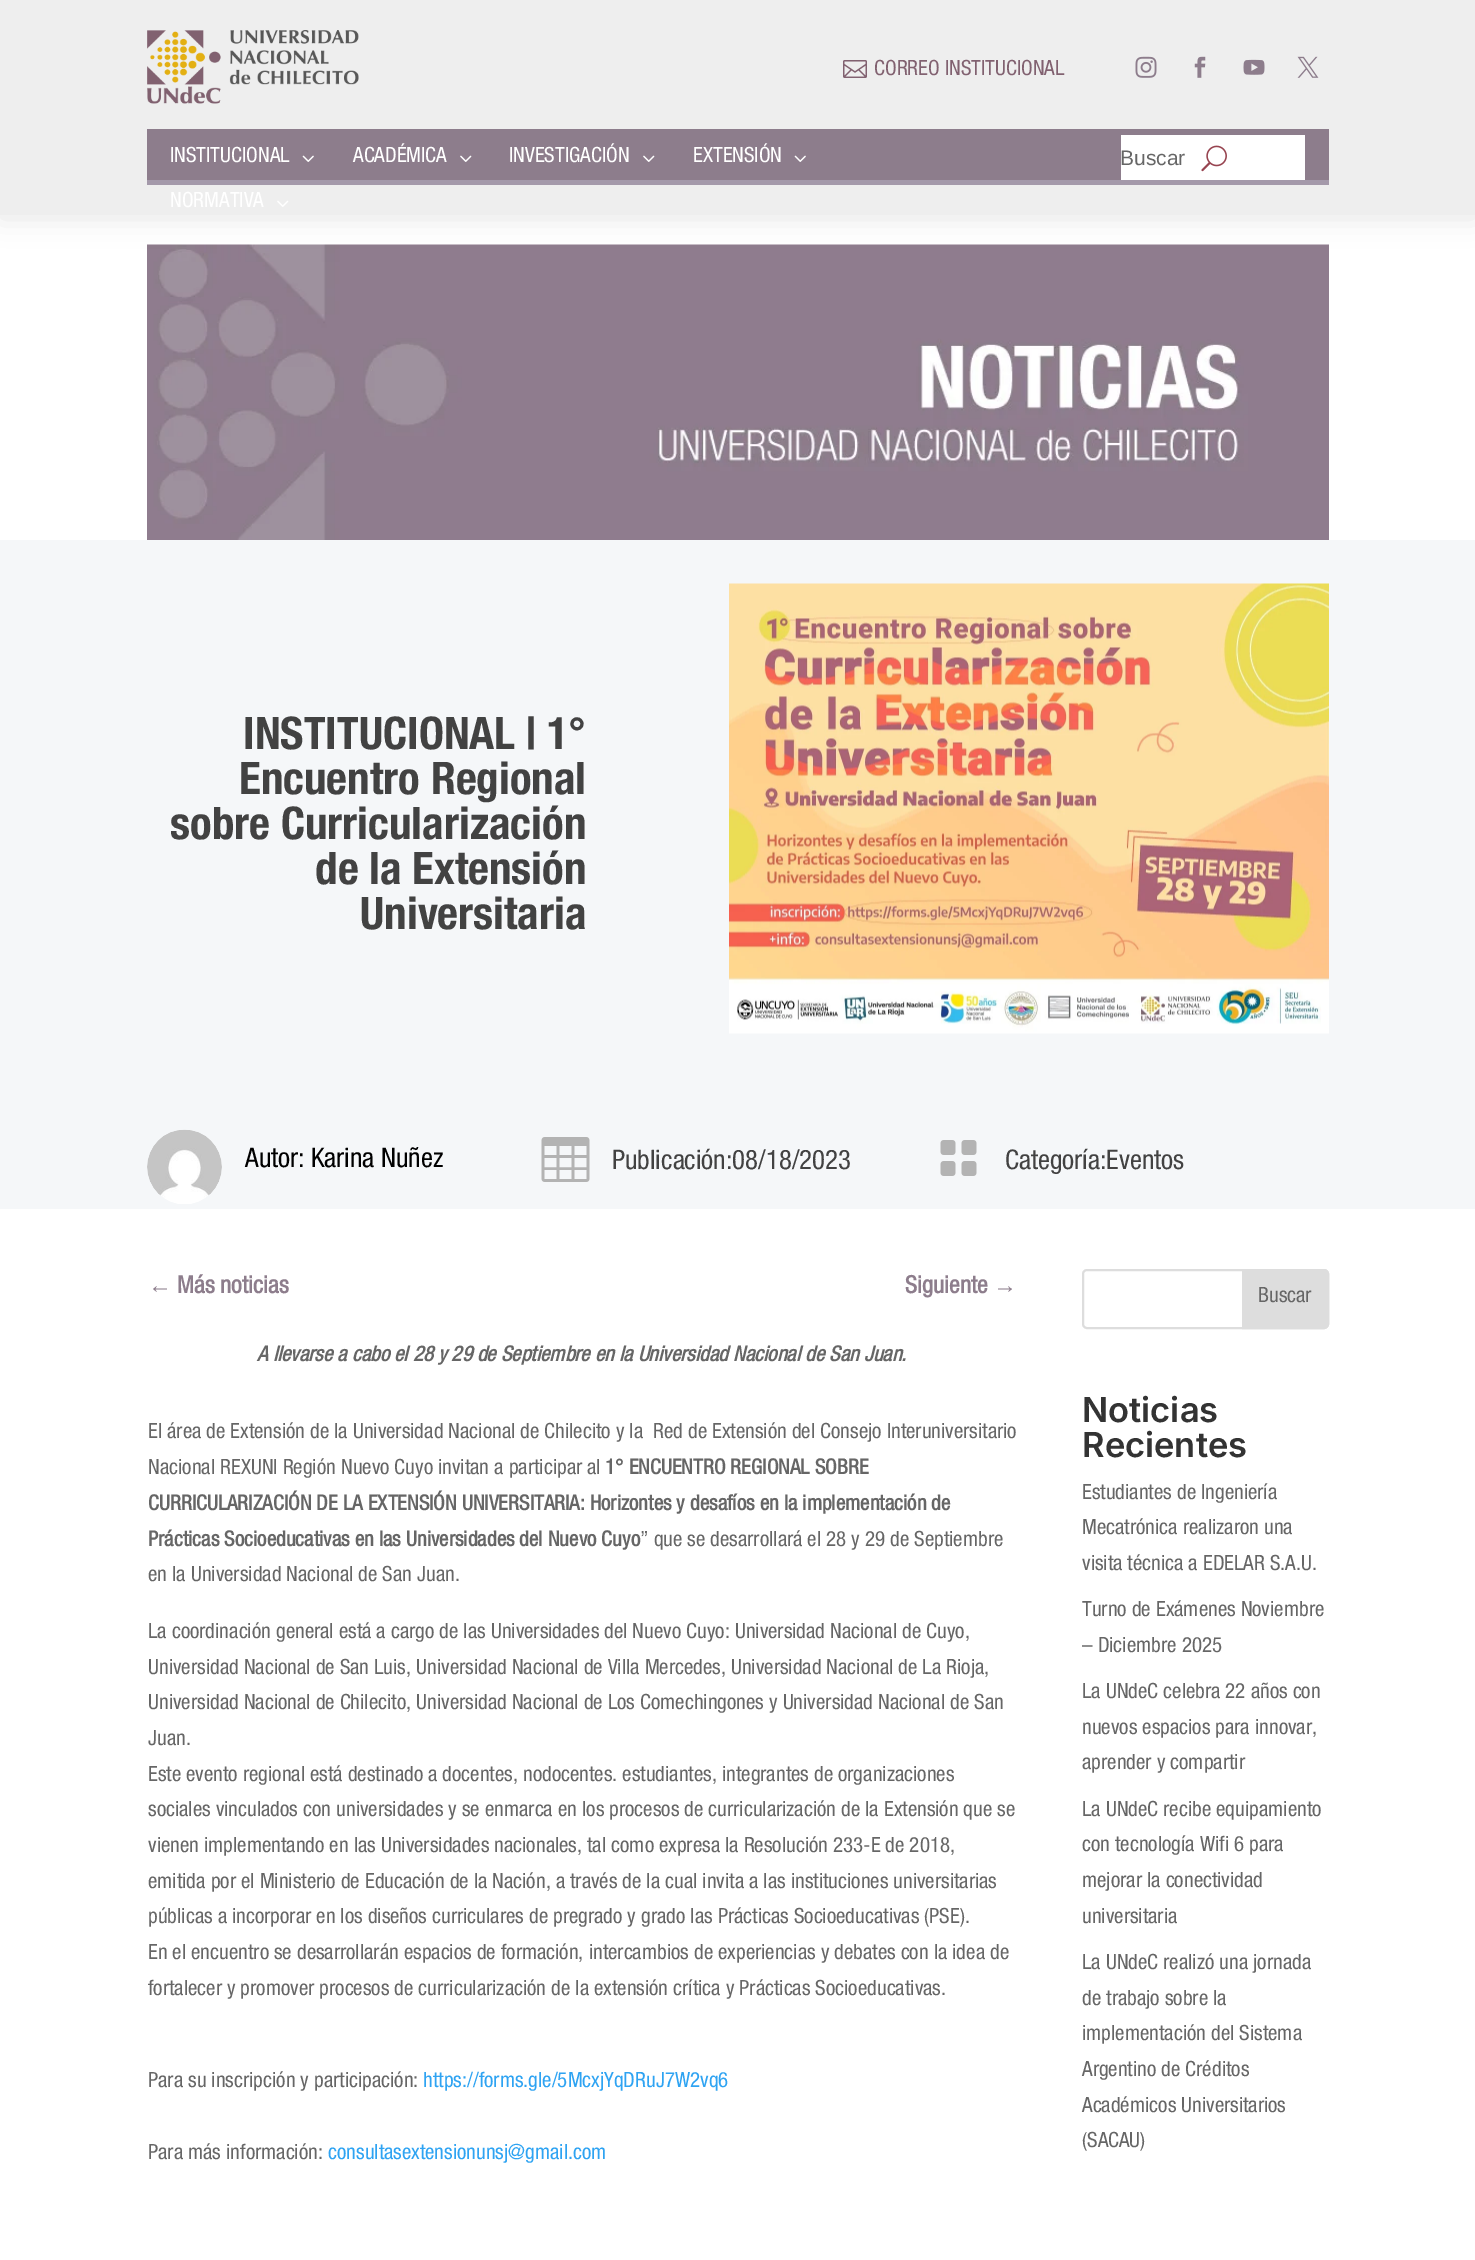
%!PS-Adobe-3.0
%%BoundingBox: 0 0 1475 2260
%%LanguageLevel: 3
%%Pages: 1
%%EndComments
%%BeginProlog
/m { moveto } bind def
/l { lineto } bind def
/c { curveto } bind def
/h { closepath } bind def
/f { fill } bind def
/S { stroke } bind def
/q { gsave } bind def
/Q { grestore } bind def
/w { setlinewidth } bind def
/fn { [ exch dup neg 0 0 3 -1 roll 0 0 ] selectfont } def
/tx { moveto show } def
/bx { rectfill } def
/al { dup .setfillconstantalpha .setstrokeconstantalpha } def
/rr { 5 dict begin { /r /h /w /y /x } { exch def } forall
  x r add y moveto x w add y 2 copy h add r arct x w add y h add x 1 index r arct
  x y h add x y r arct x y 2 copy exch w add exch r arct closepath end } def
/sh { 12 dict begin { /a /b /q /h /w /y /x } { exch def } forall gsave /was 0 def
  9 -2 -9 { dup b mul 4 div /e exch def 1 sub .425 mul 2.718 exch exp 1 add a .99 .min exch div /now exch def
    1 1 now sub 1 was sub div sub al /was now def
    w h .min e 2 mul add 0 gt { x e sub y e sub w e 2 mul add h e 2 mul add
      q e add b .6 mul add w h .min 2 div e add .min 0 .max rr fill } if } for grestore end } def
/im { 5 dict begin { /h /w /y /x /name } { exch def } forall
  gsave x y translate w h scale
  w h 8 [w 0 0 h 0 0] name (r) file false 3 colorimage grestore end } def
%%EndProlog
%%BeginSetup
<< /PageSize [1475 2260] /PageUsesTransparency true >> setpagedevice
%%EndSetup
%%Page: 1 1
0 .pushpdf14devicefilter
0 2260 translate 1 -1 scale
4 setmiterlimit
1 setgray
0 0 1475 2260 bx
(image10.raw) 147 244 1182 296 im
0 setgray
0 3 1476 215 0 13.5 0.1 sh
0.933 setgray
0 0 1475 215 bx
(image0.raw) 147 30 212 74 im
(image1.raw) 843 60 24 18 im
/HelveticaNeue-Regular 21 fn
0.506 0.38 0.439 setrgbcolor
(CORREO INSTITUCIONAL) 874 75 tx
(image2.raw) 1135 56 22 22 im
(image3.raw) 1194 56 12 22 im
(image4.raw) 1243 59 22 16 im
(image5.raw) 1297 56 22 22 im
0.553 0.49 0.549 setrgbcolor
147 129 1182 51 bx
0.643 0.6 0.667 setrgbcolor
147 180 1182 5 bx
1 setgray
(INSTITUCIONAL) 170 162 tx
(image6.raw) 302 155 12 7 im
(ACADÉMICA) 353 162 tx
(image7.raw) 460 155 12 7 im
(INVESTIGACIÓN) 509 162 tx
(image7.raw) 643 155 12 7 im
(EXTENSIÓN) 693 162 tx
(image6.raw) 794 155 12 7 im
(NORMATIVA) 170 207 tx
(image8.raw) 277 200 12 7 im
1121 135 184 45 bx
/LiberationSans-Regular 21 fn
0.4 setgray
(Buscar) 1120 165 tx
(image9.raw) 1201 145 26 27 im
0.961 0.969 0.976 setrgbcolor
0 540 1475 669 bx
/HelveticaNeue-Bold 45 fn
0.259 setgray
(INSTITUCIONAL | 1°) 243 749 tx
(Encuentro Regional) 239 794 tx
(sobre Curricularización) 170 839 tx
(de la Extensión) 315 884 tx
(Universitaria) 360 929 tx
(image11.raw) 729 583 600 451 im
(image12.raw) 147 1129 75 75 im
/HelveticaNeue-Regular 27 fn
0 setgray
(Autor: Karina Nuñez) 245 1167 tx
(image13.raw) 541 1137 49 45 im
0.259 setgray
(Publicación:08/18/2023) 612 1169 tx
(image14.raw) 940 1140 37 36 im
(Categoría:Eventos) 1005 1169 tx
/LiberationSans-Bold 24 fn
0.553 0.49 0.549 setrgbcolor
(←) 148 1293 tx
/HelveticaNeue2-Bold 24 fn
(Más noticias) 177 1293 tx
(Siguiente) 905 1293 tx
/LiberationSans-Bold 24 fn
(→) 993 1293 tx
/HelveticaNeue-BoldItalic 21 fn
0.4 setgray
(A llevarse a cabo el 28 y 29 de Septiembre en la Universidad Nacional de San Juan.) 257 1361 tx
/HelveticaNeue-Regular 21 fn
(El área de Extensión de la Universidad Nacional de Chilecito y la  Red de Extensión del Consejo Interuniversitario) 148 1438 tx
(Nacional REXUNI Región Nuevo Cuyo invitan a participar al) 148 1474 tx
/HelveticaNeue2-Bold 21 fn
(1° ENCUENTRO REGIONAL SOBRE) 605 1474 tx
(CURRICULARIZACIÓN DE LA EXTENSIÓN UNIVERSITARIA: Horizontes y desafíos en la implementación de) 148 1510 tx
(Prácticas Socioeducativas en las Universidades del Nuevo Cuyo) 148 1546 tx
/HelveticaNeue-Regular 21 fn
(” que se desarrollará el 28 y 29 de Septiembre) 640 1546 tx
(en la Universidad Nacional de San Juan.) 148 1581 tx
(La coordinación general está a cargo de las Universidades del Nuevo Cuyo: Universidad Nacional de Cuyo,) 148 1638 tx
(Universidad Nacional de San Luis, Universidad Nacional de Villa Mercedes, Universidad Nacional de La Rioja,) 148 1674 tx
(Universidad Nacional de Chilecito, Universidad Nacional de Los Comechingones y Universidad Nacional de San) 148 1709 tx
(Juan.) 148 1745 tx
(Este evento regional está destinado a docentes, nodocentes. estudiantes, integrantes de organizaciones) 148 1781 tx
(sociales vinculados con universidades y se enmarca en los procesos de curricularización de la Extensión que se) 148 1816 tx
(vienen implementando en las Universidades nacionales, tal como expresa la Resolución 233-E de 2018,) 148 1852 tx
(emitida por el Ministerio de Educación de la Nación, a través de la cual invita a las instituciones universitarias) 148 1888 tx
(públicas a incorporar en los diseños curriculares de pregrado y grado las Prácticas Socioeducativas \(PSE\).) 148 1923 tx
(En el encuentro se desarrollarán espacios de formación, intercambios de experiencias y debates con la idea de) 148 1959 tx
(fortalecer y promover procesos de curricularización de la extensión crítica y Prácticas Socioeducativas.) 148 1995 tx
(Para su inscripción y participación:) 148 2087 tx
0.18 0.639 0.949 setrgbcolor
(https://forms.gle/5McxjYqDRuJ7W2vq6) 423 2087 tx
0.4 setgray
(Para más información:) 148 2159 tx
0.18 0.639 0.949 setrgbcolor
(consultasextensionunsj@gmail.com) 328 2159 tx
0.867 setgray
2 w
1083 1270 245 58 4 rr S
1243 1270 m 1324 1270 l 1326 1270 1328 1272 1328 1274 c 1328 1324 l 1328 1326 1326 1328 1324 1328 c 1243 1328 l h q f Q
S
0.4 setgray
(Buscar) 1258 1302 tx
/Inter-SemiBold 34.5 fn
0.2 setgray
(Noticias) 1082 1422 tx
(Recientes) 1082 1457 tx
/HelveticaNeue-Regular 21 fn
0.4 setgray
(Estudiantes de Ingeniería) 1082 1499 tx
(Mecatrónica realizaron una) 1082 1534 tx
(visita técnica a EDELAR S.A.U.) 1082 1570 tx
(Turno de Exámenes Noviembre) 1082 1616 tx
(– Diciembre 2025) 1082 1652 tx
(La UNdeC celebra 22 años con) 1082 1698 tx
(nuevos espacios para innovar,) 1082 1734 tx
(aprender y compartir) 1082 1769 tx
(La UNdeC recibe equipamiento) 1082 1816 tx
(con tecnología Wifi 6 para) 1082 1851 tx
(mejorar la conectividad) 1082 1887 tx
(universitaria) 1082 1923 tx
(La UNdeC realizó una jornada) 1082 1969 tx
(de trabajo sobre la) 1082 2005 tx
(implementación del Sistema) 1082 2040 tx
(Argentino de Créditos) 1082 2076 tx
(Académicos Universitarios) 1082 2112 tx
(\(SACAU\)) 1082 2147 tx
.poppdf14devicefilter showpage
%%EOF
